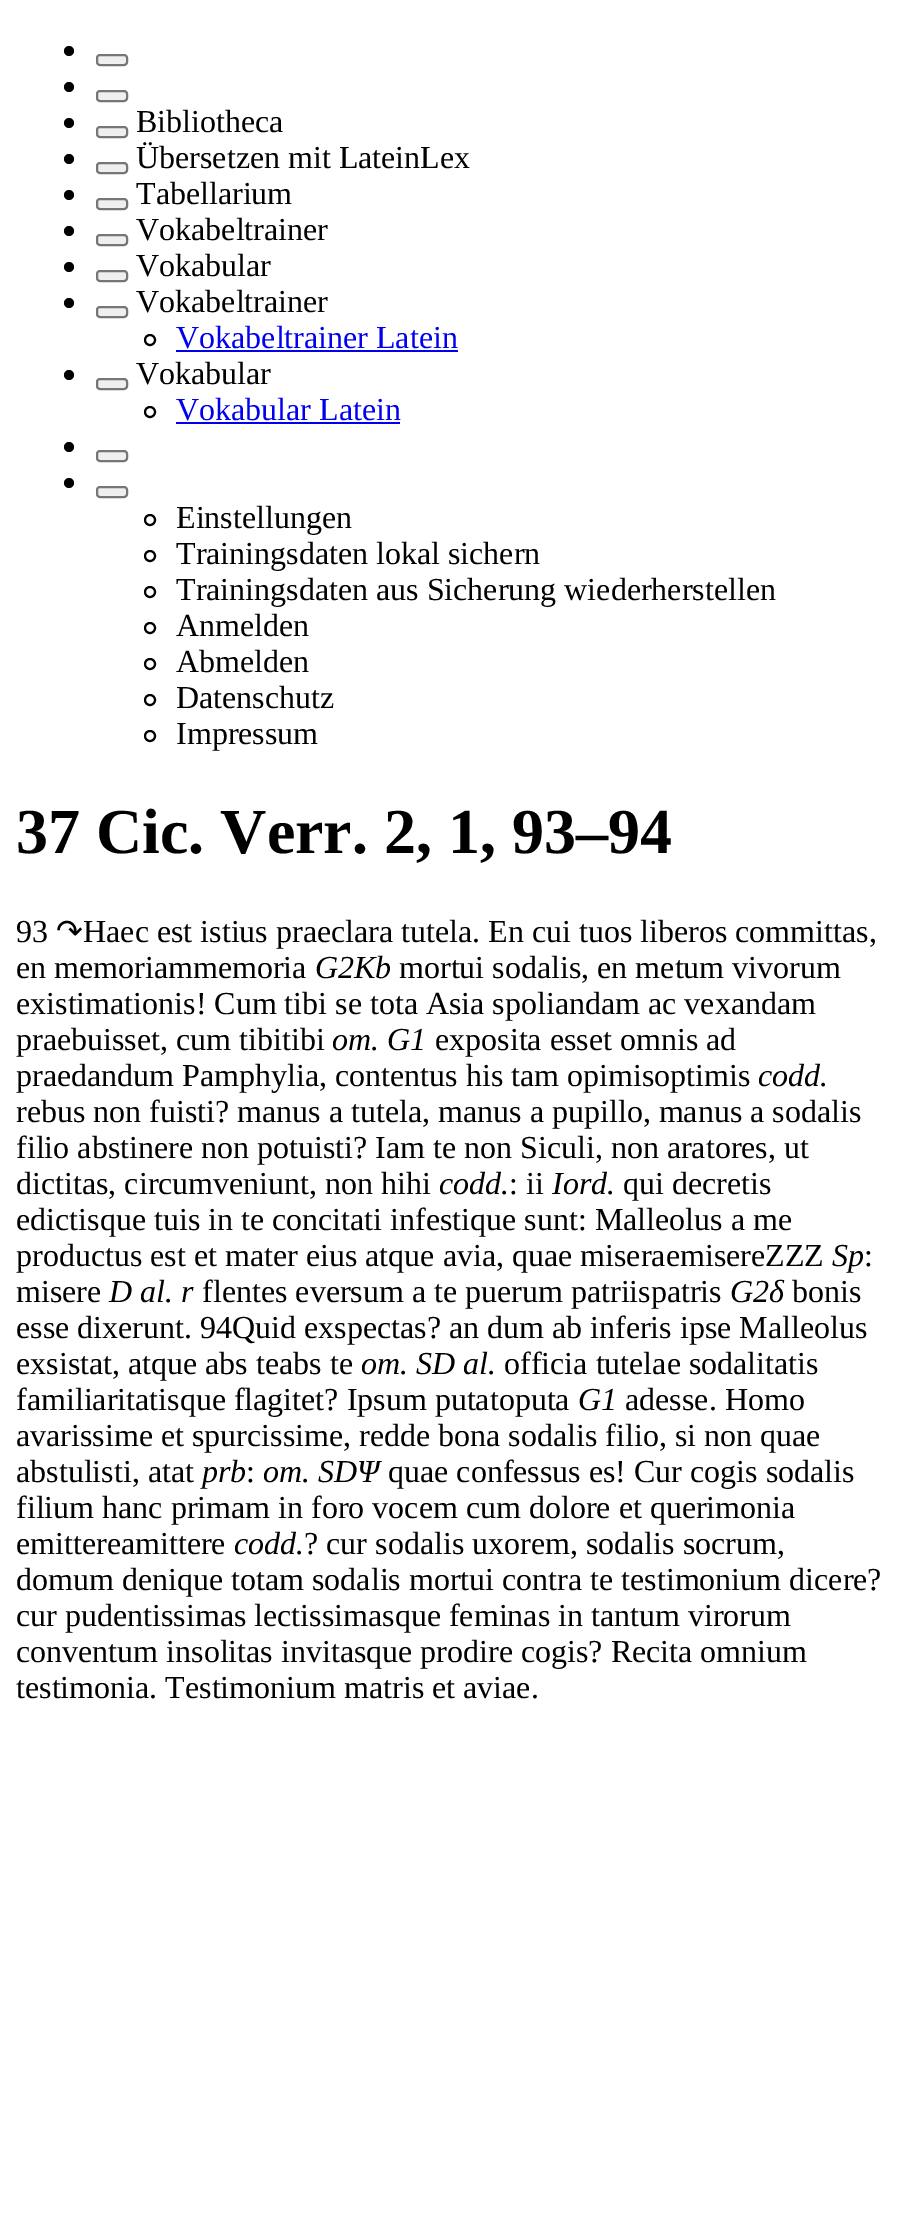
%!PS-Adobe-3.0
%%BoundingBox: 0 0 903 2219
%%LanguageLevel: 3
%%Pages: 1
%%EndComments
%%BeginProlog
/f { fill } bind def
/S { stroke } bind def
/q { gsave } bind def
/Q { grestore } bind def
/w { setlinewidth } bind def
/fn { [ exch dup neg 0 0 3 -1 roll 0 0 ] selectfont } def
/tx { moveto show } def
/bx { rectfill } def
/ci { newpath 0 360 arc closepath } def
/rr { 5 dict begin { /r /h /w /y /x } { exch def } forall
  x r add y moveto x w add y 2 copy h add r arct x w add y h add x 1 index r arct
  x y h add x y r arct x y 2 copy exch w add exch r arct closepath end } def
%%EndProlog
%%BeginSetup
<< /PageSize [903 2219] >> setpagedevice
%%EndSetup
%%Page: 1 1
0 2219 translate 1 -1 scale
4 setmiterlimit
1 setgray
0 0 903 2219 bx
0 setgray
69 51 5 ci f
0.937 setgray
97 55 30 10 3 rr q f Q
0.463 setgray
2 w
S
0 setgray
69 87 5 ci f
0.937 setgray
97 91 30 10 3 rr q f Q
0.463 setgray
S
0 setgray
69 123 5 ci f
/LiberationSerif-Regular 32 fn
(Bibliotheca) 136 132 tx
0.937 setgray
97 127 30 10 3 rr q f Q
0.463 setgray
S
0 setgray
69 159 5 ci f
(Übersetzen mit LateinLex) 136 168 tx
0.937 setgray
97 163 30 10 3 rr q f Q
0.463 setgray
S
0 setgray
69 195 5 ci f
(Tabellarium) 136 204 tx
0.937 setgray
97 199 30 10 3 rr q f Q
0.463 setgray
S
0 setgray
69 231 5 ci f
(Vokabeltrainer) 136 240 tx
0.937 setgray
97 235 30 10 3 rr q f Q
0.463 setgray
S
0 setgray
69 267 5 ci f
(Vokabular) 136 276 tx
0.937 setgray
97 271 30 10 3 rr q f Q
0.463 setgray
S
0 setgray
69 303 5 ci f
(Vokabeltrainer) 136 312 tx
0.937 setgray
97 307 30 10 3 rr q f Q
0.463 setgray
S
0 setgray
150 340 5 ci S
0 0 0.933 setrgbcolor
(Vokabeltrainer Latein) 176 348 tx
176 350 282 2 bx
0 setgray
69 375 5 ci f
(Vokabular) 136 384 tx
0.937 setgray
97 379 30 10 3 rr q f Q
0.463 setgray
S
0 setgray
150 412 5 ci S
0 0 0.933 setrgbcolor
(Vokabular Latein) 176 420 tx
176 422 224 2 bx
0 setgray
69 447 5 ci f
0.937 setgray
97 451 30 10 3 rr q f Q
0.463 setgray
S
0 setgray
69 483 5 ci f
0.937 setgray
97 487 30 10 3 rr q f Q
0.463 setgray
S
0 setgray
150 520 5 ci S
(Einstellungen) 176 528 tx
150 556 5 ci S
(Trainingsdaten lokal sichern) 176 564 tx
150 592 5 ci S
(Trainingsdaten aus Sicherung wiederherstellen) 176 600 tx
150 628 5 ci S
(Anmelden) 176 636 tx
150 664 5 ci S
(Abmelden) 176 672 tx
150 700 5 ci S
(Datenschutz) 176 708 tx
150 736 5 ci S
(Impressum) 176 744 tx
/LiberationSerif-Bold 64 fn
(37 Cic. Verr. 2, 1, 93–94) 16 853 tx
/LiberationSerif-Regular 32 fn
(93) 16 942 tx
/DejaVuSans-Regular 32 fn
(↷) 56 942 tx
/LiberationSerif-Regular 32 fn
(Haec est istius praeclara tutela. En cui tuos liberos committas,) 83 942 tx
(en memoriammemoria) 16 978 tx
/LiberationSerif-Italic 32 fn
(G2Kb) 315 978 tx
/LiberationSerif-Regular 32 fn
(mortui sodalis, en metum vivorum) 399 978 tx
(existimationis! Cum tibi se tota Asia spoliandam ac vexandam) 16 1014 tx
(praebuisset, cum tibitibi) 16 1050 tx
/LiberationSerif-Italic 32 fn
(om. G1) 332 1050 tx
/LiberationSerif-Regular 32 fn
(exposita esset omnis ad) 435 1050 tx
(praedandum Pamphylia, contentus his tam opimisoptimis) 16 1086 tx
/LiberationSerif-Italic 32 fn
(codd.) 758 1086 tx
/LiberationSerif-Regular 32 fn
(rebus non fuisti? manus a tutela, manus a pupillo, manus a sodalis) 16 1122 tx
(filio abstinere non potuisti? Iam te non Siculi, non aratores, ut) 16 1158 tx
(dictitas, circumveniunt, non hihi) 16 1194 tx
/LiberationSerif-Italic 32 fn
(codd.) 439 1194 tx
/LiberationSerif-Regular 32 fn
(: ii) 509 1194 tx
/LiberationSerif-Italic 32 fn
(Iord.) 552 1194 tx
/LiberationSerif-Regular 32 fn
(qui decretis) 623 1194 tx
(edictisque tuis in te concitati infestique sunt: Malleolus a me) 16 1230 tx
(productus est et mater eius atque avia, quae miseraemisereZZZ) 16 1266 tx
/LiberationSerif-Italic 32 fn
(Sp) 832 1266 tx
/LiberationSerif-Regular 32 fn
(:) 864 1266 tx
(misere) 16 1302 tx
/LiberationSerif-Italic 32 fn
(D al. r) 109 1302 tx
/LiberationSerif-Regular 32 fn
(flentes eversum a te puerum patriispatris) 202 1302 tx
/LiberationSerif-Italic 32 fn
(G2δ) 730 1302 tx
/LiberationSerif-Regular 32 fn
(bonis) 792 1302 tx
(esse dixerunt. 94Quid exspectas? an dum ab inferis ipse Malleolus) 16 1338 tx
(exsistat, atque abs teabs te) 16 1374 tx
/LiberationSerif-Italic 32 fn
(om. SD al.) 361 1374 tx
/LiberationSerif-Regular 32 fn
(officia tutelae sodalitatis) 504 1374 tx
(familiaritatisque flagitet? Ipsum putatoputa) 16 1410 tx
/LiberationSerif-Italic 32 fn
(G1) 578 1410 tx
/LiberationSerif-Regular 32 fn
(adesse. Homo) 625 1410 tx
(avarissime et spurcissime, redde bona sodalis filio, si non quae) 16 1446 tx
(abstulisti, atat) 16 1482 tx
/LiberationSerif-Italic 32 fn
(prb) 202 1482 tx
/LiberationSerif-Regular 32 fn
(:) 246 1482 tx
/LiberationSerif-Italic 32 fn
(om. SDΨ) 263 1482 tx
/LiberationSerif-Regular 32 fn
(quae confessus es! Cur cogis sodalis) 388 1482 tx
(filium hanc primam in foro vocem cum dolore et querimonia) 16 1518 tx
(emittereamittere) 16 1554 tx
/LiberationSerif-Italic 32 fn
(codd.) 234 1554 tx
/LiberationSerif-Regular 32 fn
(? cur sodalis uxorem, sodalis socrum,) 304 1554 tx
(domum denique totam sodalis mortui contra te testimonium dicere?) 16 1590 tx
(cur pudentissimas lectissimasque feminas in tantum virorum) 16 1626 tx
(conventum insolitas invitasque prodire cogis? Recita omnium) 16 1662 tx
(testimonia. Testimonium matris et aviae.) 16 1698 tx
showpage
%%EOF
